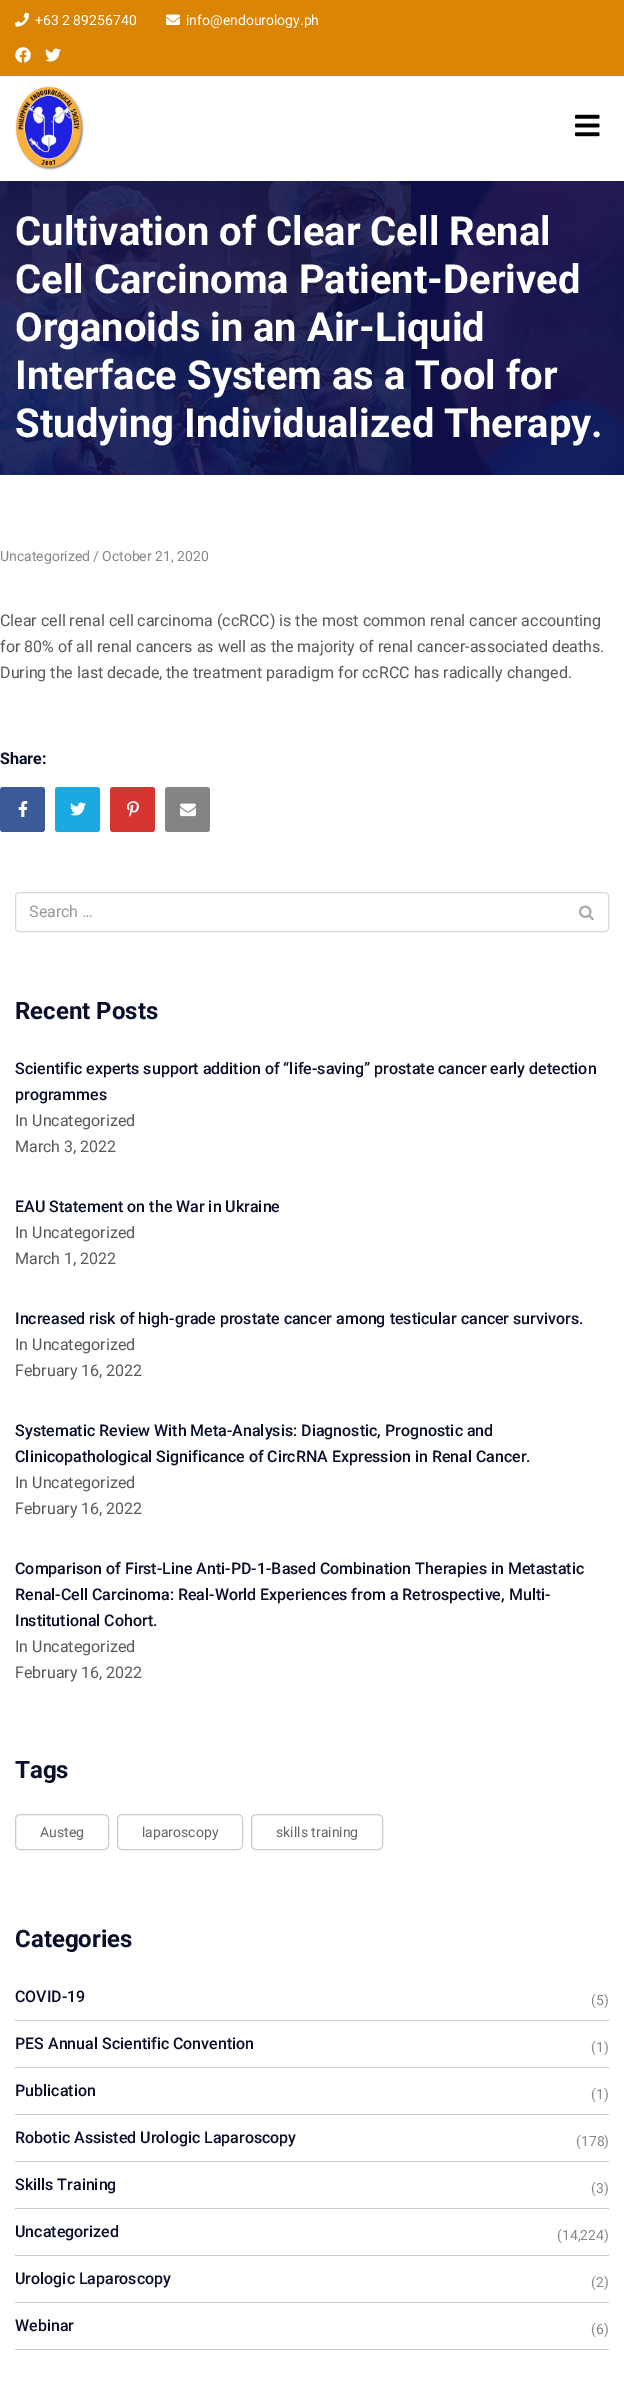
%!PS-Adobe-3.0
%%BoundingBox: 0 0 624 2401
%%LanguageLevel: 3
%%Pages: 1
%%EndComments
%%BeginProlog
/f { fill } bind def
/S { stroke } bind def
/fn { [ exch dup neg 0 0 3 -1 roll 0 0 ] selectfont } def
/tx { moveto show } def
/bx { rectfill } def
/rr { 5 dict begin { /r /h /w /y /x } { exch def } forall
  x r add y moveto x w add y 2 copy h add r arct x w add y h add x 1 index r arct
  x y h add x y r arct x y 2 copy exch w add exch r arct closepath end } def
/im { 5 dict begin { /h /w /y /x /name } { exch def } forall
  gsave x y translate w h scale
  w h 8 [w 0 0 h 0 0] name (r) file false 3 colorimage grestore end } def
%%EndProlog
%%BeginSetup
<< /PageSize [624 2401] >> setpagedevice
%%EndSetup
%%Page: 1 1
0 2401 translate 1 -1 scale
4 setmiterlimit
1 setgray
0 0 624 2401 bx
0.855 0.522 0.02 setrgbcolor
0 0 624 76 bx
(image0.raw) 15 12 14 15 im
/Roboto-Regular 14 fn
1 setgray
(+63 2 89256740) 35 25 tx
(image1.raw) 166 14 14 11 im
(info@endourology.ph) 186 25 tx
(image2.raw) 15 47 16 16 im
(image3.raw) 45 48 16 14 im
(image4.raw) 15 86 70 85 im
(image5.raw) 575 114 25 23 im
(image6.raw) 0 181 624 294 im
/Roboto-Bold 40 fn
(Cultivation of Clear Cell Renal) 15 245 tx
(Cell Carcinoma Patient-Derived) 15 293 tx
(Organoids in an Air-Liquid) 15 341 tx
(Interface System as a Tool for) 15 389 tx
(Studying Individualized Therapy.) 15 437 tx
/Roboto-Regular 14 fn
0.533 setgray
(Uncategorized) 0 561 tx
(/) 93 561 tx
(October 21, 2020) 102 561 tx
/Roboto-Regular 16 fn
0.349 setgray
(Clear cell renal cell carcinoma \(ccRCC\) is the most common renal cancer accounting) 0 626 tx
(for 80% of all renal cancers as well as the majority of renal cancer-associated deaths.) 0 652 tx
(During the last decade, the treatment paradigm for ccRCC has radically changed.) 0 678 tx
/Roboto-Bold 16 fn
0.039 0.059 0.169 setrgbcolor
(Share:) 0 764 tx
0.231 0.353 0.604 setrgbcolor
0 787 45 45 3 rr f
(image7.raw) 18 801 10 16 im
0.102 0.663 0.882 setrgbcolor
55 787 45 45 3 rr f
(image8.raw) 70 802 16 14 im
0.843 0.208 0.196 setrgbcolor
110 787 45 45 3 rr f
(image9.raw) 127 801 12 16 im
0.518 setgray
165 787 45 45 3 rr f
(image10.raw) 180 803 16 14 im
0.851 setgray
15.5 892.5 593 39 3.5 rr S
/Roboto-Regular 16 fn
0.6 setgray
(Search …) 29 917 tx
(image11.raw) 579 905 15 16 im
/Roboto-Bold 24 fn
0.039 0.059 0.169 setrgbcolor
(Recent Posts) 15 1019 tx
/Roboto-Medium 16 fn
(Scientific experts support addition of “life-saving” prostate cancer early detection) 15 1074 tx
(programmes) 15 1100 tx
/Roboto-Regular 16 fn
0.349 setgray
(In Uncategorized) 15 1126 tx
(March 3, 2022) 15 1152 tx
/Roboto-Medium 16 fn
0.039 0.059 0.169 setrgbcolor
(EAU Statement on the War in Ukraine) 15 1212 tx
/Roboto-Regular 16 fn
0.349 setgray
(In Uncategorized) 15 1238 tx
(March 1, 2022) 15 1264 tx
/Roboto-Medium 16 fn
0.039 0.059 0.169 setrgbcolor
(Increased risk of high-grade prostate cancer among testicular cancer survivors.) 15 1324 tx
/Roboto-Regular 16 fn
0.349 setgray
(In Uncategorized) 15 1350 tx
(February 16, 2022) 15 1376 tx
/Roboto-Medium 16 fn
0.039 0.059 0.169 setrgbcolor
(Systematic Review With Meta-Analysis: Diagnostic, Prognostic and) 15 1436 tx
(Clinicopathological Significance of CircRNA Expression in Renal Cancer.) 15 1462 tx
/Roboto-Regular 16 fn
0.349 setgray
(In Uncategorized) 15 1488 tx
(February 16, 2022) 15 1514 tx
/Roboto-Medium 16 fn
0.039 0.059 0.169 setrgbcolor
(Comparison of First-Line Anti-PD-1-Based Combination Therapies in Metastatic) 15 1574 tx
(Renal-Cell Carcinoma: Real-World Experiences from a Retrospective, Multi-) 15 1600 tx
(Institutional Cohort.) 15 1626 tx
/Roboto-Regular 16 fn
0.349 setgray
(In Uncategorized) 15 1652 tx
(February 16, 2022) 15 1678 tx
/Roboto-Bold 24 fn
0.039 0.059 0.169 setrgbcolor
(Tags) 15 1778 tx
0.8 setgray
15.5 1814.5 93 35 4.5 rr S
/Roboto-Regular 14 fn
0.4 setgray
(Austeg) 40 1837 tx
0.8 setgray
117.5 1814.5 125 35 4.5 rr S
0.4 setgray
(laparoscopy) 142 1837 tx
0.8 setgray
251.5 1814.5 131 35 4.5 rr S
0.4 setgray
(skills training) 276 1837 tx
/Roboto-Bold 24 fn
0.039 0.059 0.169 setrgbcolor
(Categories) 15 1947 tx
0.808 setgray
15 2020 594 1 bx
/Roboto-Medium 16 fn
0.039 0.059 0.169 setrgbcolor
(COVID-19) 15 2002 tx
/Roboto-Regular 14 fn
0.533 setgray
(\(5\)) 591 2005 tx
0.808 setgray
15 2067 594 1 bx
/Roboto-Medium 16 fn
0.039 0.059 0.169 setrgbcolor
(PES Annual Scientific Convention) 15 2049 tx
/Roboto-Regular 14 fn
0.533 setgray
(\(1\)) 591 2052 tx
0.808 setgray
15 2114 594 1 bx
/Roboto-Medium 16 fn
0.039 0.059 0.169 setrgbcolor
(Publication) 15 2096 tx
/Roboto-Regular 14 fn
0.533 setgray
(\(1\)) 591 2099 tx
0.808 setgray
15 2161 594 1 bx
/Roboto-Medium 16 fn
0.039 0.059 0.169 setrgbcolor
(Robotic Assisted Urologic Laparoscopy) 15 2143 tx
/Roboto-Regular 14 fn
0.533 setgray
(\(178\)) 576 2146 tx
0.808 setgray
15 2208 594 1 bx
/Roboto-Medium 16 fn
0.039 0.059 0.169 setrgbcolor
(Skills Training) 15 2190 tx
/Roboto-Regular 14 fn
0.533 setgray
(\(3\)) 591 2193 tx
0.808 setgray
15 2255 594 1 bx
/Roboto-Medium 16 fn
0.039 0.059 0.169 setrgbcolor
(Uncategorized) 15 2237 tx
/Roboto-Regular 14 fn
0.533 setgray
(\(14,224\)) 557 2240 tx
0.808 setgray
15 2302 594 1 bx
/Roboto-Medium 16 fn
0.039 0.059 0.169 setrgbcolor
(Urologic Laparoscopy) 15 2284 tx
/Roboto-Regular 14 fn
0.533 setgray
(\(2\)) 591 2287 tx
0.808 setgray
15 2349 594 1 bx
/Roboto-Medium 16 fn
0.039 0.059 0.169 setrgbcolor
(Webinar) 15 2331 tx
/Roboto-Regular 14 fn
0.533 setgray
(\(6\)) 591 2334 tx
showpage
%%EOF
